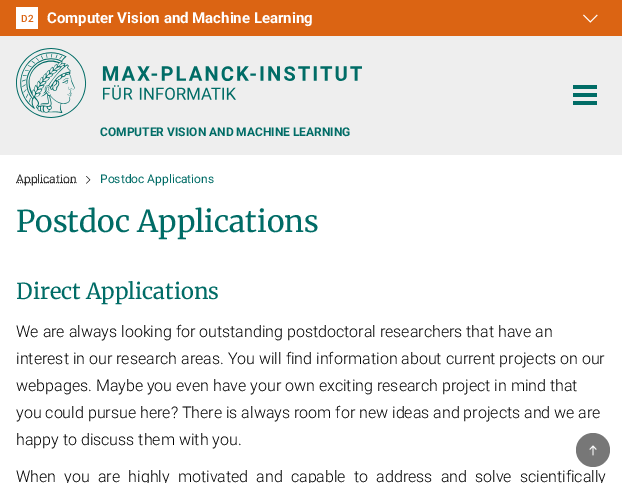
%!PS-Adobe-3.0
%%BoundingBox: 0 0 622 483
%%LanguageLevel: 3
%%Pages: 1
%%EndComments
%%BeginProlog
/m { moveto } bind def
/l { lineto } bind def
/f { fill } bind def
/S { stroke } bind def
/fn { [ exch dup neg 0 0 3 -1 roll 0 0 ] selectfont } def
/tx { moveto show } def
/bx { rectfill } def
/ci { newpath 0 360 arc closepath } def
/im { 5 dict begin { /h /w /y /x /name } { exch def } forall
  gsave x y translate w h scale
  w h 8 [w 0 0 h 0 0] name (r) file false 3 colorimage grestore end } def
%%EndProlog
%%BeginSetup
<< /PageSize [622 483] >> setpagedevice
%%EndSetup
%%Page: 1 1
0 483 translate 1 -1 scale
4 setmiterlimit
1 setgray
0 0 622 483 bx
0.859 0.392 0.075 setrgbcolor
0 0 622 36 bx
1 setgray
16 7 22 22 bx
/Roboto-Medium 10 fn
0.859 0.392 0.075 setrgbcolor
(D2) 21 22 tx
/Roboto-Bold 15 fn
1 setgray
(Computer Vision and Machine Learning) 47 23 tx
(image0.raw) 583 14 15 9 im
0.933 setgray
0 36 622 119 bx
0 0.424 0.4 setrgbcolor
573 85 24 4 bx
573 93 24 4 bx
573 101 24 4 bx
(image1.raw) 16 48 346 70 im
/Roboto-Bold 12 fn
(COMPUTER VISION AND MACHINE LEARNING) 100 136 tx
0.2 setgray
[1 1] 0 setdash
16 182.5 m 76.5 182.5 l S
/Roboto-Regular 12 fn
(Application) 16 183 tx
(image2.raw) 86 176 5 8 im
0 0.424 0.4 setrgbcolor
(Postdoc Applications) 100 183 tx
/Merriweather-Light 30 fn
(Postdoc Applications) 16 232 tx
/Merriweather-Light 22 fn
(Direct Applications) 16 299 tx
/Roboto-Light 16 fn
0 setgray
(We are always looking for outstanding postdoctoral researchers that have an) 16 337 tx
(interest in our research areas. You will find information about current projects on our) 16 364 tx
(webpages. Maybe you even have your own exciting research project in mind that) 16 391 tx
(you could pursue here? There is always room for new ideas and projects and we are) 16 418 tx
(happy to discuss them with you.) 16 445 tx
16 482 m 4.25 0 32 (When you are highly motivated and capable to address and solve scientifically) widthshow
0.467 setgray
593 450 17 ci f
(image3.raw) 589 445 8 11 im
showpage
%%EOF
